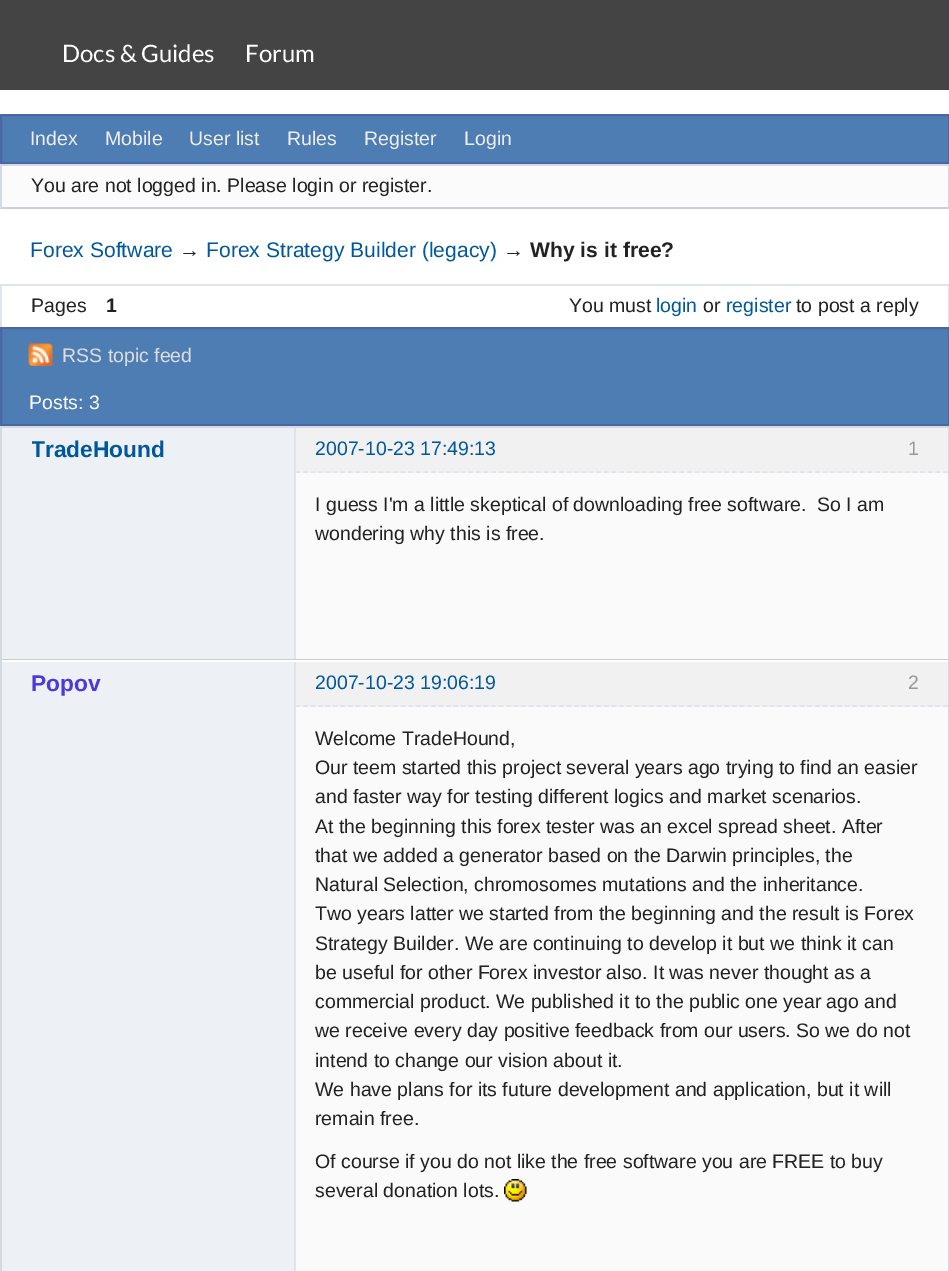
%!PS-Adobe-3.0
%%BoundingBox: 0 0 949 1271
%%LanguageLevel: 3
%%Pages: 1
%%EndComments
%%BeginProlog
/m { moveto } bind def
/l { lineto } bind def
/h { closepath } bind def
/f { fill } bind def
/S { stroke } bind def
/q { gsave } bind def
/Q { grestore } bind def
/w { setlinewidth } bind def
/fn { [ exch dup neg 0 0 3 -1 roll 0 0 ] selectfont } def
/tx { moveto show } def
/bx { rectfill } def
/im { 5 dict begin { /h /w /y /x /name } { exch def } forall
  gsave x y translate w h scale
  w h 8 [w 0 0 h 0 0] name (r) file false 3 colorimage grestore end } def
%%EndProlog
%%BeginSetup
<< /PageSize [949 1271] >> setpagedevice
%%EndSetup
%%Page: 1 1
0 1271 translate 1 -1 scale
4 setmiterlimit
1 setgray
0 0 949 1271 bx
0.267 setgray
0 0 949 90 bx
/Lato-Regular 24 fn
1 setgray
(Docs & Guides) 62 62 tx
(Forum) 245 62 tx
0.302 0.49 0.702 setrgbcolor
1 115 m 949 115 l 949 163 l 1 163 l h q f Q
0.298 0.4 0.643 setrgbcolor
2 w
S
/LiberationSans-Regular 19.5 fn
0.933 setgray
(Index) 30 145 tx
(Mobile) 105 145 tx
(User list) 189 145 tx
(Rules) 287 145 tx
(Register) 364 145 tx
(Login) 464 145 tx
0.984 setgray
2 166 946 41 bx
0.827 0.855 0.882 setrgbcolor
0 164 949 2 bx
948 164 1 45 bx
0.796 0.82 0.847 setrgbcolor
0 207 949 2 bx
0.827 0.855 0.882 setrgbcolor
0 164 2 45 bx
0.133 setgray
(You are not logged in. Please login or register.) 31 192 tx
/LiberationSans-Regular 21.1 fn
0 0.341 0.612 setrgbcolor
(Forex Software) 30 257 tx
0.133 setgray
(→) 179 257 tx
0 0.341 0.612 setrgbcolor
(Forex Strategy Builder \(legacy\)) 206 257 tx
0.133 setgray
(→) 503 257 tx
/LiberationSans-Bold 21.1 fn
(Why is it free?) 530 257 tx
0.867 0.894 0.922 setrgbcolor
0 284 949 2 bx
948 284 1 43 bx
0 284 2 43 bx
/LiberationSans-Regular 19.5 fn
0.133 setgray
(Pages) 31 312 tx
/LiberationSans-Bold 19.5 fn
(1) 106 312 tx
/LiberationSans-Regular 19.5 fn
(You must) 569 312 tx
0 0.341 0.612 setrgbcolor
(login) 656 312 tx
0.133 setgray
(or) 703 312 tx
0 0.341 0.612 setrgbcolor
(register) 726 312 tx
0.133 setgray
(to post a reply) 796 312 tx
0.302 0.49 0.702 setrgbcolor
1 328 m 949 328 l 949 425 l 1 425 l h q f Q
0.298 0.4 0.643 setrgbcolor
S
(image0.raw) 28 343 25 23 im
0.867 setgray
(RSS topic feed) 62 362 tx
1 setgray
(Posts: 3) 29 409 tx
0.827 0.855 0.882 setrgbcolor
0 426 949 2 bx
948 426 1 845 bx
0 426 2 845 bx
0.929 0.945 0.961 setrgbcolor
2 428 292 231 bx
0.8 setgray
2 659 946 1 bx
0.867 0.894 0.922 setrgbcolor
294 428 2 231 bx
0.945 setgray
296 428 652 45 bx
0.867 0.894 0.922 setrgbcolor
1.5 w
[4.5 3.03] 0 setdash
295.5 472 m 948 472 l S
q
32 434 243 30 rectclip
/LiberationSans-Bold 22.75 fn
0 0.341 0.612 setrgbcolor
(TradeHound) 31 457 tx
Q
0 0.341 0.612 setrgbcolor
(2007-10-23 17:49:13) 315 455 tx
0.6 setgray
(1) 908 455 tx
0.98 setgray
296 473 652 186 bx
0.133 setgray
(I guess I'm a little skeptical of downloading free software.  So I am) 315 511 tx
(wondering why this is free.) 315 540 tx
0.929 0.945 0.961 setrgbcolor
2 662 292 609 bx
0.98 setgray
296 707 652 564 bx
0.867 0.894 0.922 setrgbcolor
294 662 2 609 bx
0.945 setgray
296 662 652 45 bx
0.867 0.894 0.922 setrgbcolor
295.5 706 m 948 706 l S
/LiberationSans-Bold 22.75 fn
0.294 0.224 0.867 setrgbcolor
(Popov) 31 691 tx
/LiberationSans-Regular 19.5 fn
0 0.341 0.612 setrgbcolor
(2007-10-23 19:06:19) 315 689 tx
0.6 setgray
(2) 908 689 tx
0.133 setgray
(Welcome TradeHound,) 315 745 tx
(Our teem started this project several years ago trying to find an easier) 315 774 tx
(and faster way for testing different logics and market scenarios.) 315 803 tx
(At the beginning this forex tester was an excel spread sheet. After) 315 833 tx
(that we added a generator based on the Darwin principles, the) 315 862 tx
(Natural Selection, chromosomes mutations and the inheritance.) 315 891 tx
(Two years latter we started from the beginning and the result is Forex) 315 920 tx
(Strategy Builder. We are continuing to develop it but we think it can) 315 950 tx
(be useful for other Forex investor also. It was never thought as a) 315 979 tx
(commercial product. We published it to the public one year ago and) 315 1008 tx
(we receive every day positive feedback from our users. So we do not) 315 1037 tx
(intend to change our vision about it.) 315 1067 tx
(We have plans for its future development and application, but it will) 315 1096 tx
(remain free.) 315 1125 tx
(Of course if you do not like the free software you are FREE to buy) 315 1168 tx
(several donation lots.) 315 1197 tx
(image1.raw) 504 1179 23 23 im
showpage
%%EOF
